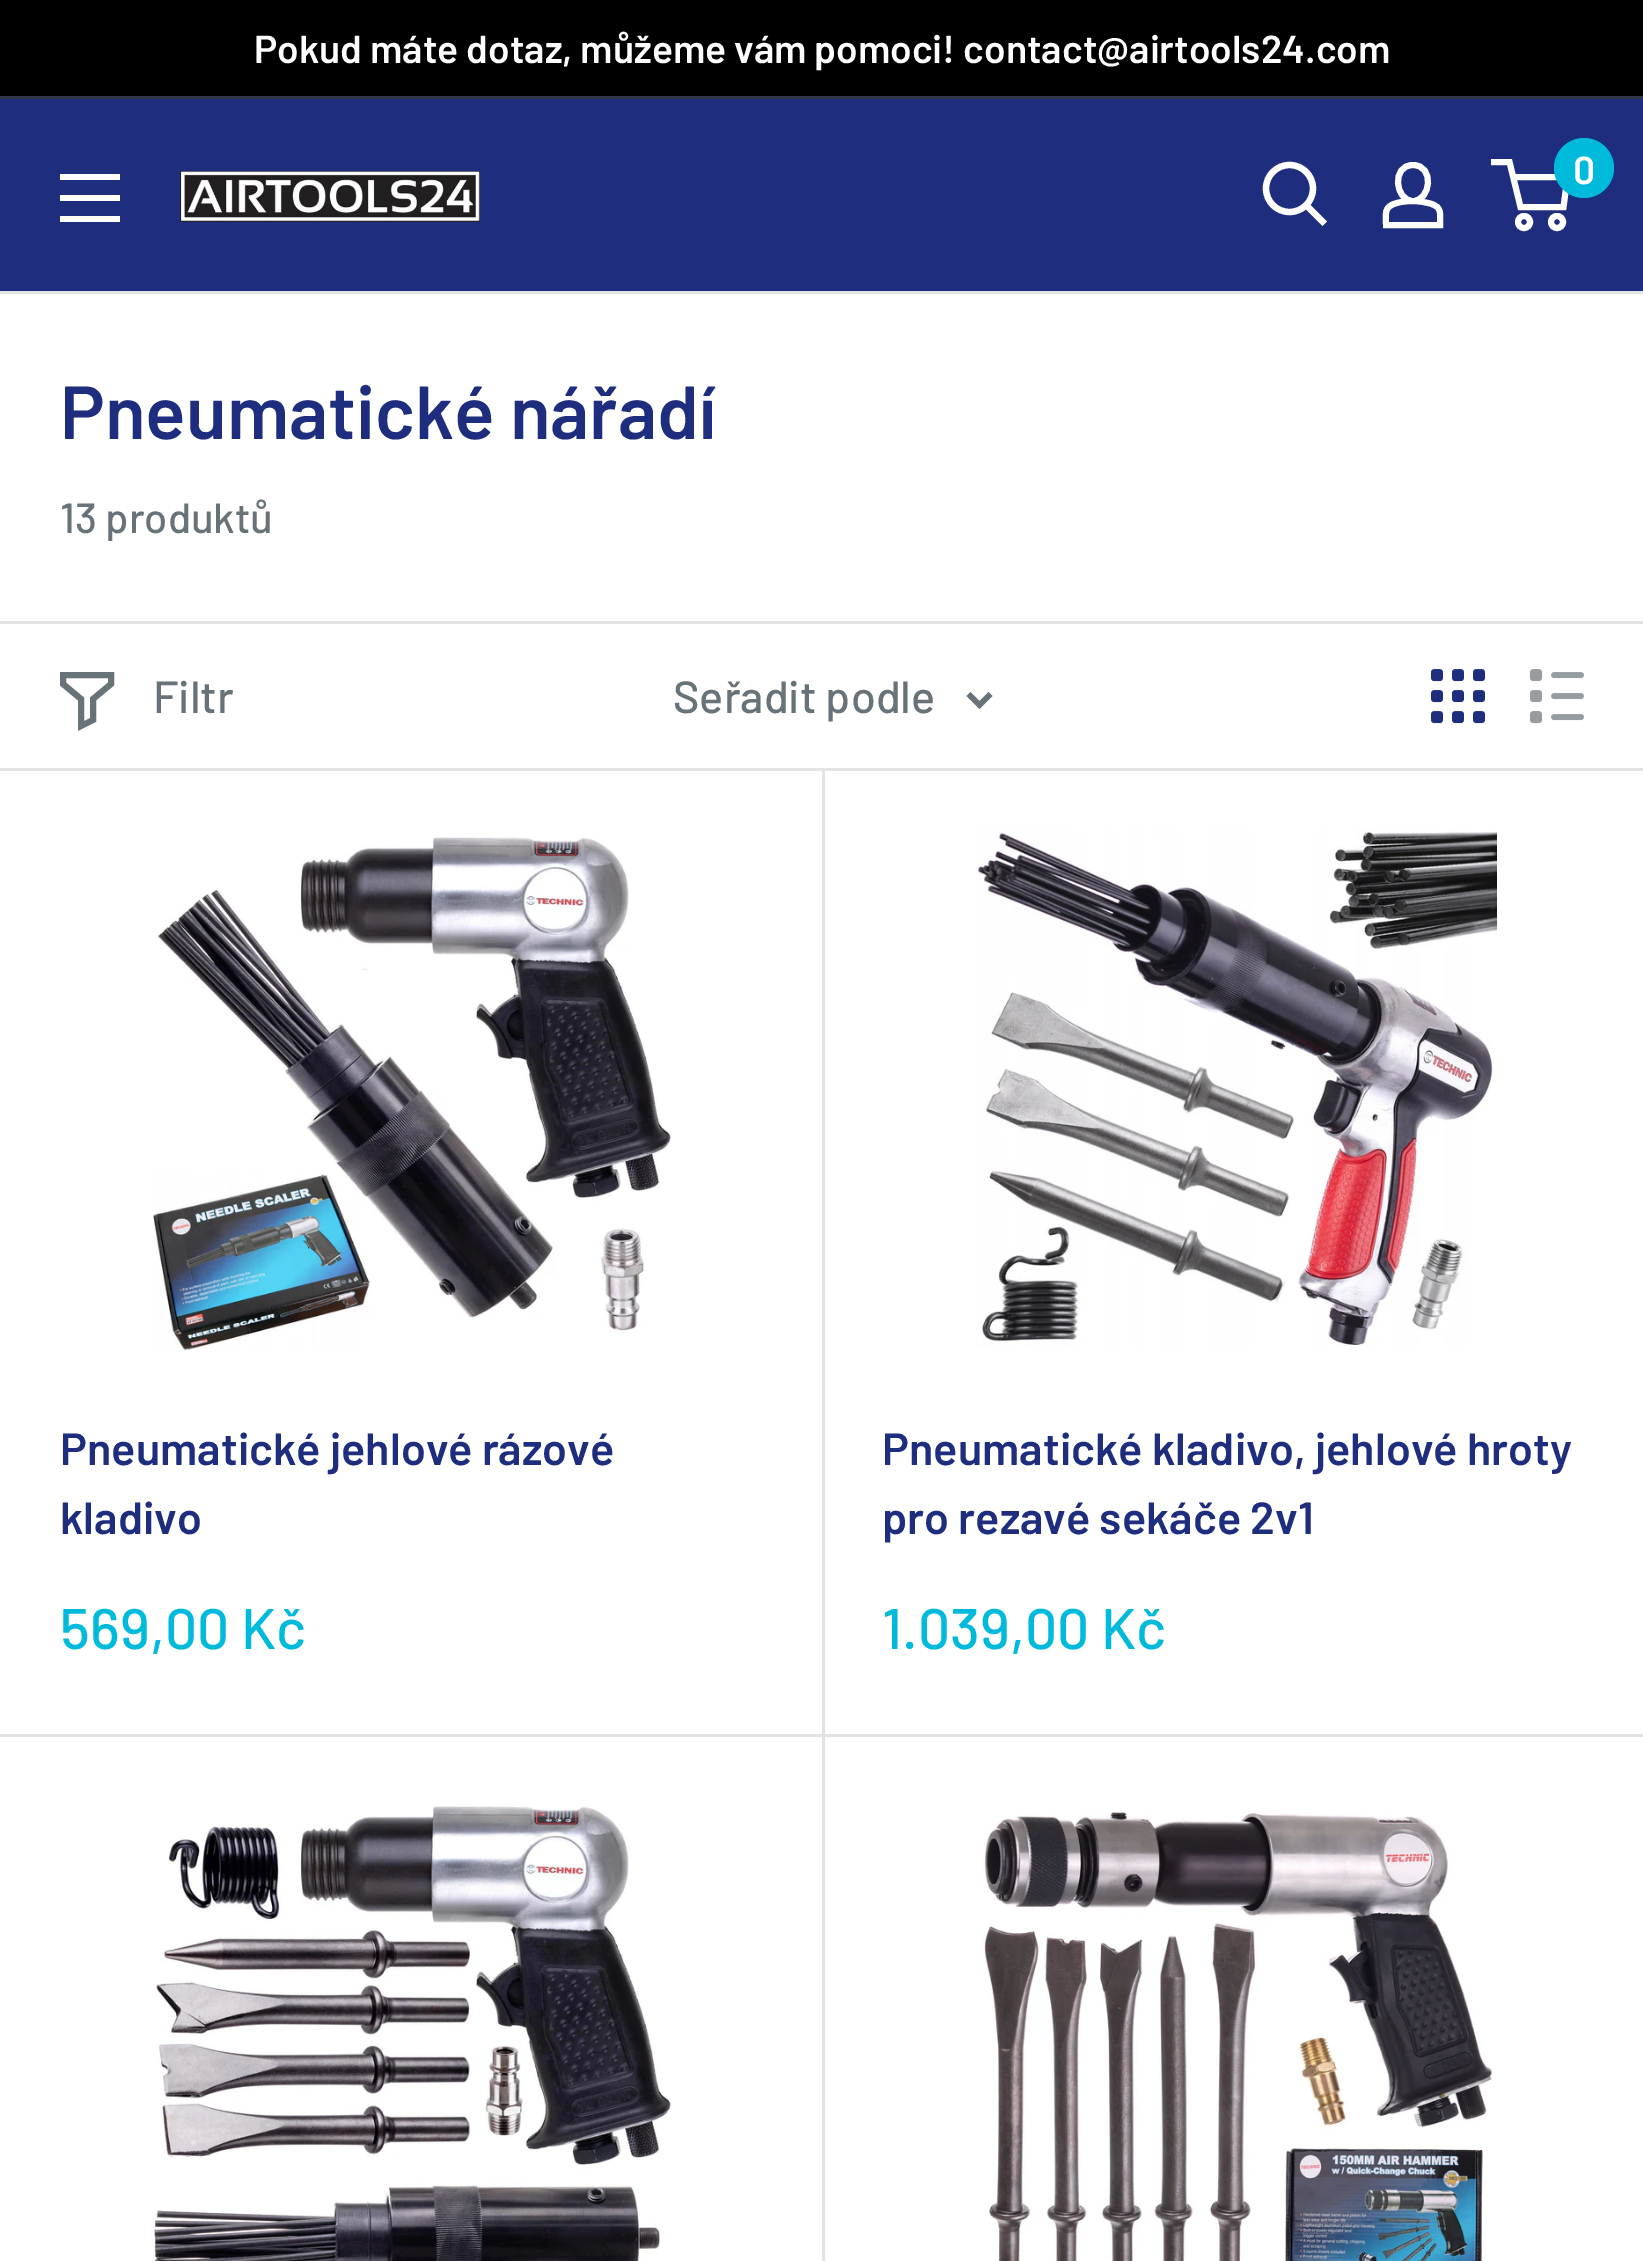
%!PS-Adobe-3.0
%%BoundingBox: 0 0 1643 2261
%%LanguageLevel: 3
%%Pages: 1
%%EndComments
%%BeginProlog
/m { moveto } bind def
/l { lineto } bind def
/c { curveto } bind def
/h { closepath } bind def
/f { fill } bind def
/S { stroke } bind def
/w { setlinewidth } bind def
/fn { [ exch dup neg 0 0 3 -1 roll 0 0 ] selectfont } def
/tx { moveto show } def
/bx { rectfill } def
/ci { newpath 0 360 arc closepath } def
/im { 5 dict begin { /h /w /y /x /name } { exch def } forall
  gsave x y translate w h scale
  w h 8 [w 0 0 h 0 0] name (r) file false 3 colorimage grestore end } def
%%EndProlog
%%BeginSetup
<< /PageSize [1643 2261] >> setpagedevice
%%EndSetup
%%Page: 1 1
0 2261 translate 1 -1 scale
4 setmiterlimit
0 setgray
0 0 1643 2261 bx
0.192 0.208 0.282 setrgbcolor
0 96 1643 3 bx
/Barlow-SemiBold 39 fn
1 setgray
(Pokud máte dotaz, můžeme vám pomoci! contact@airtools24.com) 254 63 tx
0.118 0.176 0.49 setrgbcolor
0 99 1643 192 bx
1 setgray
60 216 m 120 216 l 120 222 l 60 222 l h 60 174 m 120 174 l 120 180 l 60 180 l h 60 195 m 120 195 l 120 201 l 60 201 l h eofill
(image0.raw) 180 171 300 51 im
6.3 w
2 setlinecap
1322.5 221.5 m 1307 206 l S
0 setlinecap
1289.5 188.5 23.5 ci S
6 w
1413 201 m 1418.5 201 1424.5 202 1430 203.5 c 1442.5 207 1440 213.5 1440 225 c 1386 225 l 1386 213 1383.5 206.5 1397 203 c 1402.5 201.5 1407.5 201 1413 201 c h 1413 201 m 1395 201 1391 165 1413 165 c 1435 165 1431 201 1413 201 c h S
1524 222 6 ci S
1557 222 6 ci S
1513 177 m 1567.5 177 l 1563.5 207 l 1520.5 207 l 1509.5 162 l 1491 162 l S
0 0.729 0.859 setrgbcolor
1584 168 30 ci f
1 setgray
(0) 1573 184 tx
0 294 1643 1967 bx
0.882 0.89 0.894 setrgbcolor
0 291 1643 3 bx
/Barlow-SemiBold 75 fn
0.118 0.176 0.49 setrgbcolor
(Pneumatické nářadí) 60 439 tx
/Barlow-Medium 42 fn
0.404 0.447 0.475 setrgbcolor
(13 produktů) 60 533 tx
0.882 0.89 0.894 setrgbcolor
0 621 1643 3 bx
0 1734 1643 3 bx
822 768 3 1493 bx
0 768 1643 3 bx
0.404 0.447 0.475 setrgbcolor
2 setlinecap
111 684 m 93 699 l 93 720 l 81 726 l 81 699 l 63 684 l 63 675 l 111 675 l h S
/Barlow-Medium 45 fn
(Filtr) 153 713 tx
(Seřadit podle) 673 713 tx
5.6 w
988.5 696 m 979.5 705 l 970.5 696 l S
(image1.raw) 1431 669 54 55 im
(image2.raw) 1530 669 54 55 im
(image3.raw) 153 837 518 514 im
/Barlow-SemiBold 45 fn
0.118 0.176 0.49 setrgbcolor
(Pneumatické jehlové rázové) 60 1465 tx
(kladivo) 60 1534 tx
/Barlow-Medium 57 fn
0 0.729 0.859 setrgbcolor
(569,00 Kč) 60 1649 tx
(image4.raw) 976 830 521 517 im
/Barlow-SemiBold 45 fn
0.118 0.176 0.49 setrgbcolor
(Pneumatické kladivo, jehlové hroty) 882 1465 tx
(pro rezavé sekáče 2v1) 882 1534 tx
/Barlow-Medium 57 fn
0 0.729 0.859 setrgbcolor
(1.039,00 Kč) 882 1649 tx
(image5.raw) 152 1806 519 455 im
(image6.raw) 983 1812 510 449 im
showpage
%%EOF
